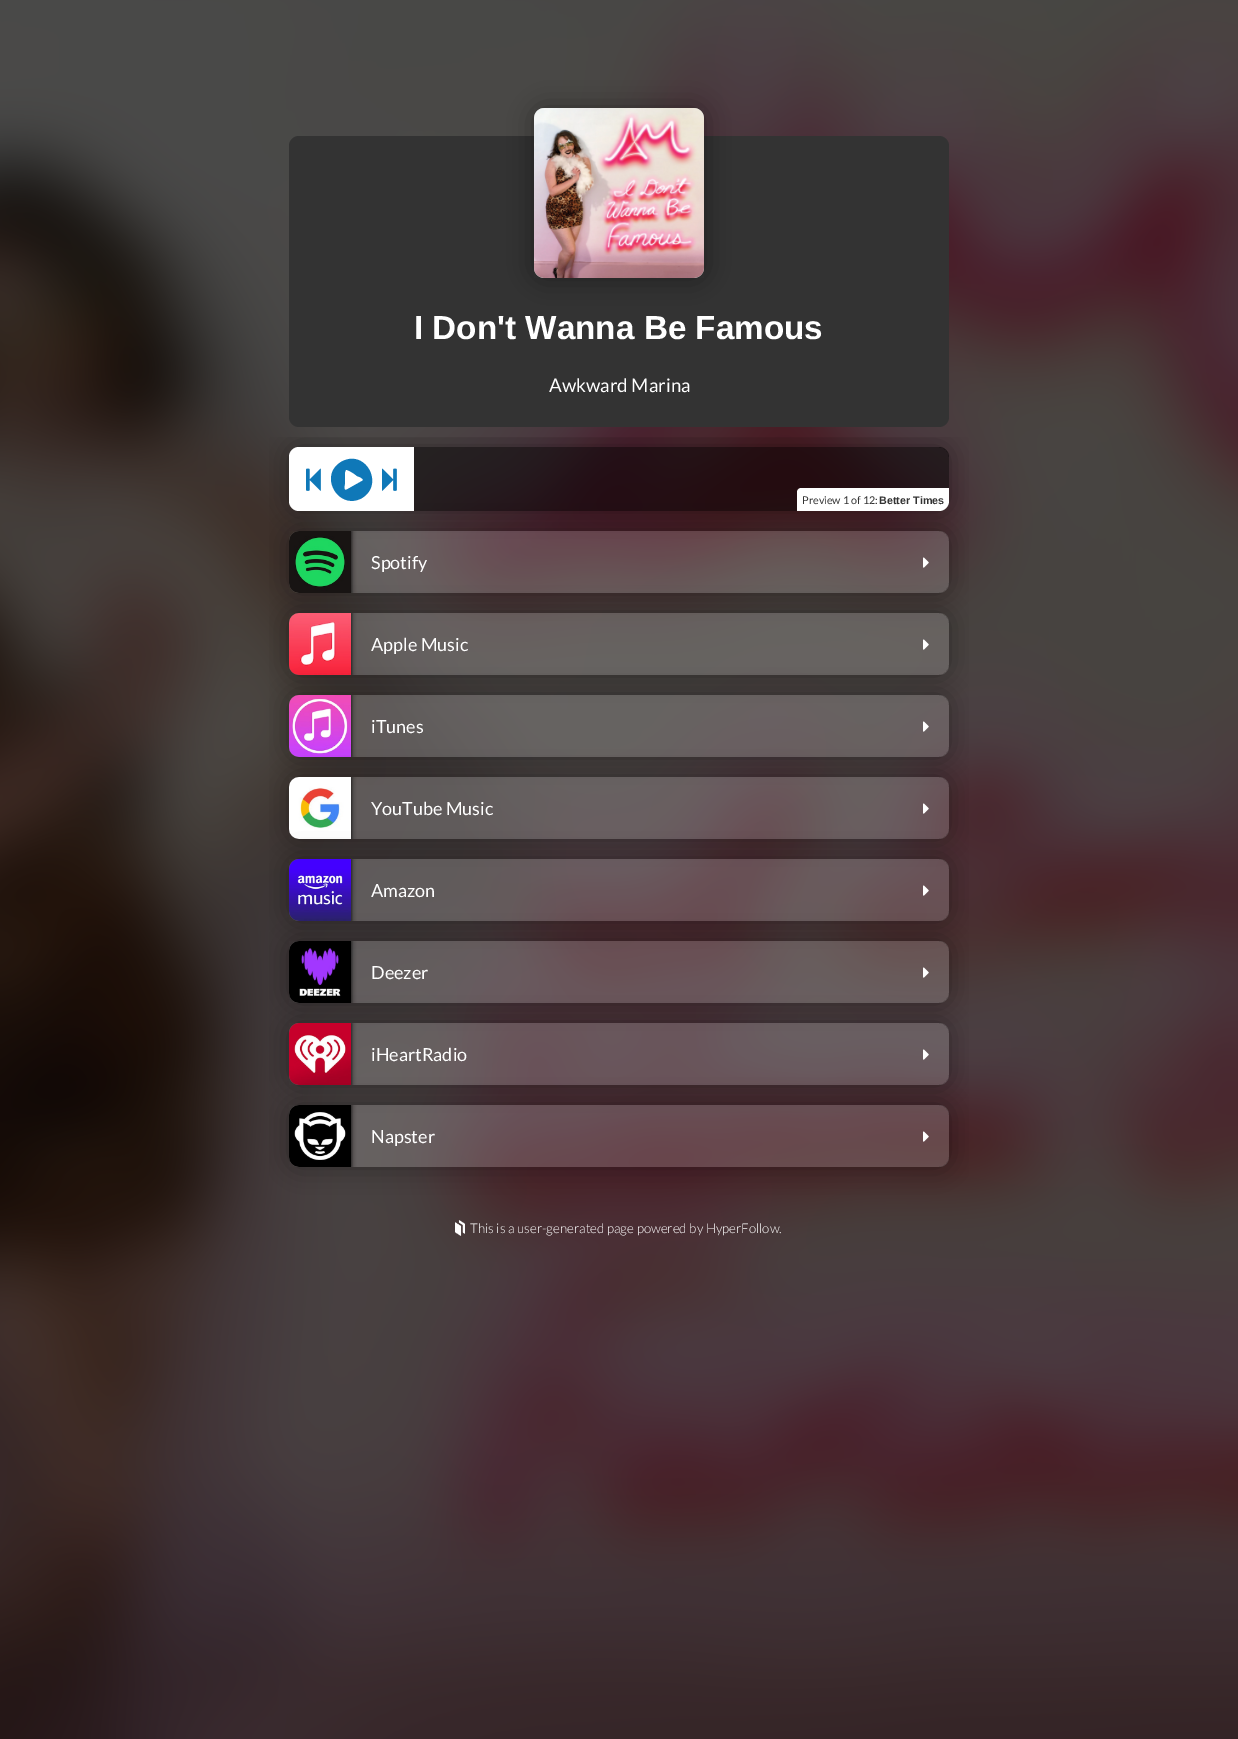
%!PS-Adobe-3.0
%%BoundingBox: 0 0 1238 1739
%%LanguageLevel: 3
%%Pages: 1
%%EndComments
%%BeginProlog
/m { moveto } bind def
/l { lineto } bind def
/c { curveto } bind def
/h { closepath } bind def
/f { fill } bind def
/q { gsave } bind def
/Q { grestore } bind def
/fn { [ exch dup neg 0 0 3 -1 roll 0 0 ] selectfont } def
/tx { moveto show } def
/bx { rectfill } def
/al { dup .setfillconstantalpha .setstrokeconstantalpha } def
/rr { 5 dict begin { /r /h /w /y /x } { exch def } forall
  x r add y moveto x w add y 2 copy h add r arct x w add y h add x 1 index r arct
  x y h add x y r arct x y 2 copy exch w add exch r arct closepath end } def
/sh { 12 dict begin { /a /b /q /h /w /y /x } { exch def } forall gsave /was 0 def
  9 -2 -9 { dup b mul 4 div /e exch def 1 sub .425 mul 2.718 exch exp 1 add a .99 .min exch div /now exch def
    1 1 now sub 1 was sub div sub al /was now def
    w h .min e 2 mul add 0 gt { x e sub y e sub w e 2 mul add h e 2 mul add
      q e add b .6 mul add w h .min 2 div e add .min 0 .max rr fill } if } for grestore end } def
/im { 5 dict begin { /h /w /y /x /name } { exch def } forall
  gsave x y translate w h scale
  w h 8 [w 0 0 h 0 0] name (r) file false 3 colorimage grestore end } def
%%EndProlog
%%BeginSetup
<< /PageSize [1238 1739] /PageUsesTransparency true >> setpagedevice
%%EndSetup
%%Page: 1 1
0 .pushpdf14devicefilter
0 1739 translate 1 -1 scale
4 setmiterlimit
0 setgray
0 0 1238 1739 bx
(image0.raw) 0 0 1238 1739 im
0.2 setgray
289 136 660 291 10 rr f
0 setgray
534 108 170 170 10 12.5 0.35 sh
0.8 setgray
534 108 170 170 10 rr f
(image1.raw) 534 108 170 170 im
/LiberationSans-Bold 33.25 fn
1 setgray
(I Don't Wanna Be Famous) 414 339 tx
/Lato-Regular 18.75 fn
(Awkward Marina) 549 392 tx
q
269 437 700 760 rectclip
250 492 m 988 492 l 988 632 l 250 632 l h 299 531 m 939 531 l 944.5 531 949 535.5 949 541 c 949 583 l 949 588.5 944.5 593 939 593 c 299 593 l 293.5 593 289 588.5 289 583 c 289 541 l 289 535.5 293.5 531 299 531 c h eoclip newpath
0 setgray
289 531 660 62 10 12.5 0.35 sh
Q
0.17 al
289 531 660 62 10 rr f
q
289 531 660 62 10 rr clip newpath
1 al
0 setgray
289 531 62 62 0 2.5 1 sh
Q
1 al
(image4.raw) 289 531 62 62 im
q
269 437 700 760 rectclip
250 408 m 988 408 l 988 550 l 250 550 l h 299 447 m 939 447 l 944.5 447 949 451.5 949 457 c 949 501 l 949 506.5 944.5 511 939 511 c 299 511 l 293.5 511 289 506.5 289 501 c 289 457 l 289 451.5 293.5 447 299 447 c h eoclip newpath
0 setgray
289 447 660 64 10 12.5 0.35 sh
Q
299 447 m 414 447 l 414 511 l 299 511 l 293.5 511 289 506.5 289 501 c 289 457 l 289 451.5 293.5 447 299 447 c h f
(image2.raw) 306 468 15 23 im
0.059 0.471 0.722 setrgbcolor
341 462 m 365 448 385 484 362 498 c 339 511 318 476 341 462 c h 362 481 m 366 479 357 476 357 476 c 355 474 347 469 346 470 c 344 471 345 481 345 483 c 345 484 343 490 346 490 c h f
(image3.raw) 382 468 15 23 im
0.5 al
0 setgray
414 447 m 939 447 l 944.5 447 949 451.5 949 457 c 949 501 l 949 506.5 944.5 511 939 511 c 414 511 l h f
1 al
1 setgray
801 488 m 949 488 l 949 501 l 949 506.5 944.5 511 939 511 c 797 511 l 797 492 l 797 490 799 488 801 488 c h f
/Lato-Regular 10.75 fn
0.2 setgray
(Preview 1 of 12:) 802 504 tx
/LiberationSans-Bold 10.75 fn
(Better Times) 879 504 tx
/Lato-Regular 18 fn
1 setgray
(Spotify) 371 569 tx
(image5.raw) 923 557 6 11 im
q
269 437 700 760 rectclip
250 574 m 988 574 l 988 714 l 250 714 l h 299 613 m 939 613 l 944.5 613 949 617.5 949 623 c 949 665 l 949 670.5 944.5 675 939 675 c 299 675 l 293.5 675 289 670.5 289 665 c 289 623 l 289 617.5 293.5 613 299 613 c h eoclip newpath
0 setgray
289 613 660 62 10 12.5 0.35 sh
Q
0.17 al
289 613 660 62 10 rr f
q
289 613 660 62 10 rr clip newpath
1 al
0 setgray
289 613 62 62 0 2.5 1 sh
Q
1 al
(image6.raw) 289 613 62 62 im
(Apple Music) 371 651 tx
(image7.raw) 923 639 6 11 im
q
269 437 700 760 rectclip
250 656 m 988 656 l 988 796 l 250 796 l h 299 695 m 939 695 l 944.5 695 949 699.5 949 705 c 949 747 l 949 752.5 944.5 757 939 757 c 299 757 l 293.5 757 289 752.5 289 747 c 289 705 l 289 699.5 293.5 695 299 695 c h eoclip newpath
0 setgray
289 695 660 62 10 12.5 0.35 sh
Q
0.17 al
289 695 660 62 10 rr f
q
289 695 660 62 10 rr clip newpath
1 al
0 setgray
289 695 62 62 0 2.5 1 sh
Q
1 al
(image8.raw) 289 695 62 62 im
(iTunes) 371 733 tx
(image9.raw) 923 721 6 11 im
q
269 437 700 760 rectclip
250 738 m 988 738 l 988 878 l 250 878 l h 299 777 m 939 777 l 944.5 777 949 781.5 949 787 c 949 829 l 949 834.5 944.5 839 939 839 c 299 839 l 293.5 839 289 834.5 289 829 c 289 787 l 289 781.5 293.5 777 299 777 c h eoclip newpath
0 setgray
289 777 660 62 10 12.5 0.35 sh
Q
0.17 al
289 777 660 62 10 rr f
q
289 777 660 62 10 rr clip newpath
1 al
0 setgray
289 777 62 62 0 2.5 1 sh
Q
1 al
(image10.raw) 289 777 62 62 im
(YouTube Music) 371 815 tx
(image11.raw) 923 803 6 11 im
q
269 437 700 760 rectclip
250 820 m 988 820 l 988 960 l 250 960 l h 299 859 m 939 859 l 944.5 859 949 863.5 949 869 c 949 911 l 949 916.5 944.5 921 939 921 c 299 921 l 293.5 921 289 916.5 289 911 c 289 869 l 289 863.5 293.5 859 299 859 c h eoclip newpath
0 setgray
289 859 660 62 10 12.5 0.35 sh
Q
0.17 al
289 859 660 62 10 rr f
q
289 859 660 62 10 rr clip newpath
1 al
0 setgray
289 859 62 62 0 2.5 1 sh
Q
1 al
(image12.raw) 289 859 62 62 im
(Amazon) 371 897 tx
(image13.raw) 923 885 6 11 im
q
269 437 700 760 rectclip
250 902 m 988 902 l 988 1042 l 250 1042 l h 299 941 m 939 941 l 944.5 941 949 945.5 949 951 c 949 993 l 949 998.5 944.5 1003 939 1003 c 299 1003 l 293.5 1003 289 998.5 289 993 c 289 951 l 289 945.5 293.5 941 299 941 c h eoclip newpath
0 setgray
289 941 660 62 10 12.5 0.35 sh
Q
0.17 al
289 941 660 62 10 rr f
q
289 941 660 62 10 rr clip newpath
1 al
0 setgray
289 941 62 62 0 2.5 1 sh
Q
1 al
(image14.raw) 289 941 62 62 im
(Deezer) 371 979 tx
(image15.raw) 923 967 6 11 im
q
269 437 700 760 rectclip
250 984 m 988 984 l 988 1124 l 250 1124 l h 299 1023 m 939 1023 l 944.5 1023 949 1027.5 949 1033 c 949 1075 l 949 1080.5 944.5 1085 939 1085 c 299 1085 l 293.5 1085 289 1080.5 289 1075 c 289 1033 l 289 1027.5 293.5 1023 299 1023 c h eoclip newpath
0 setgray
289 1023 660 62 10 12.5 0.35 sh
Q
0.17 al
289 1023 660 62 10 rr f
q
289 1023 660 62 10 rr clip newpath
1 al
0 setgray
289 1023 62 62 0 2.5 1 sh
Q
1 al
(image16.raw) 289 1023 62 62 im
(iHeartRadio) 371 1061 tx
(image17.raw) 923 1049 6 11 im
q
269 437 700 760 rectclip
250 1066 m 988 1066 l 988 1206 l 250 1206 l h 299 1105 m 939 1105 l 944.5 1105 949 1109.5 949 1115 c 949 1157 l 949 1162.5 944.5 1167 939 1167 c 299 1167 l 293.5 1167 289 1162.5 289 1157 c 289 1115 l 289 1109.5 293.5 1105 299 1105 c h eoclip newpath
0 setgray
289 1105 660 62 10 12.5 0.35 sh
Q
0.17 al
289 1105 660 62 10 rr f
q
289 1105 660 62 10 rr clip newpath
1 al
0 setgray
289 1105 62 62 0 2.5 1 sh
Q
1 al
(image18.raw) 289 1105 62 62 im
(Napster) 371 1143 tx
(image19.raw) 923 1131 6 11 im
(image20.raw) 455 1220 10 16 im
/Lato-Light 13.3 fn
(This is a user-generated page powered by HyperFollow.) 470 1233 tx
.poppdf14devicefilter showpage
%%EOF
